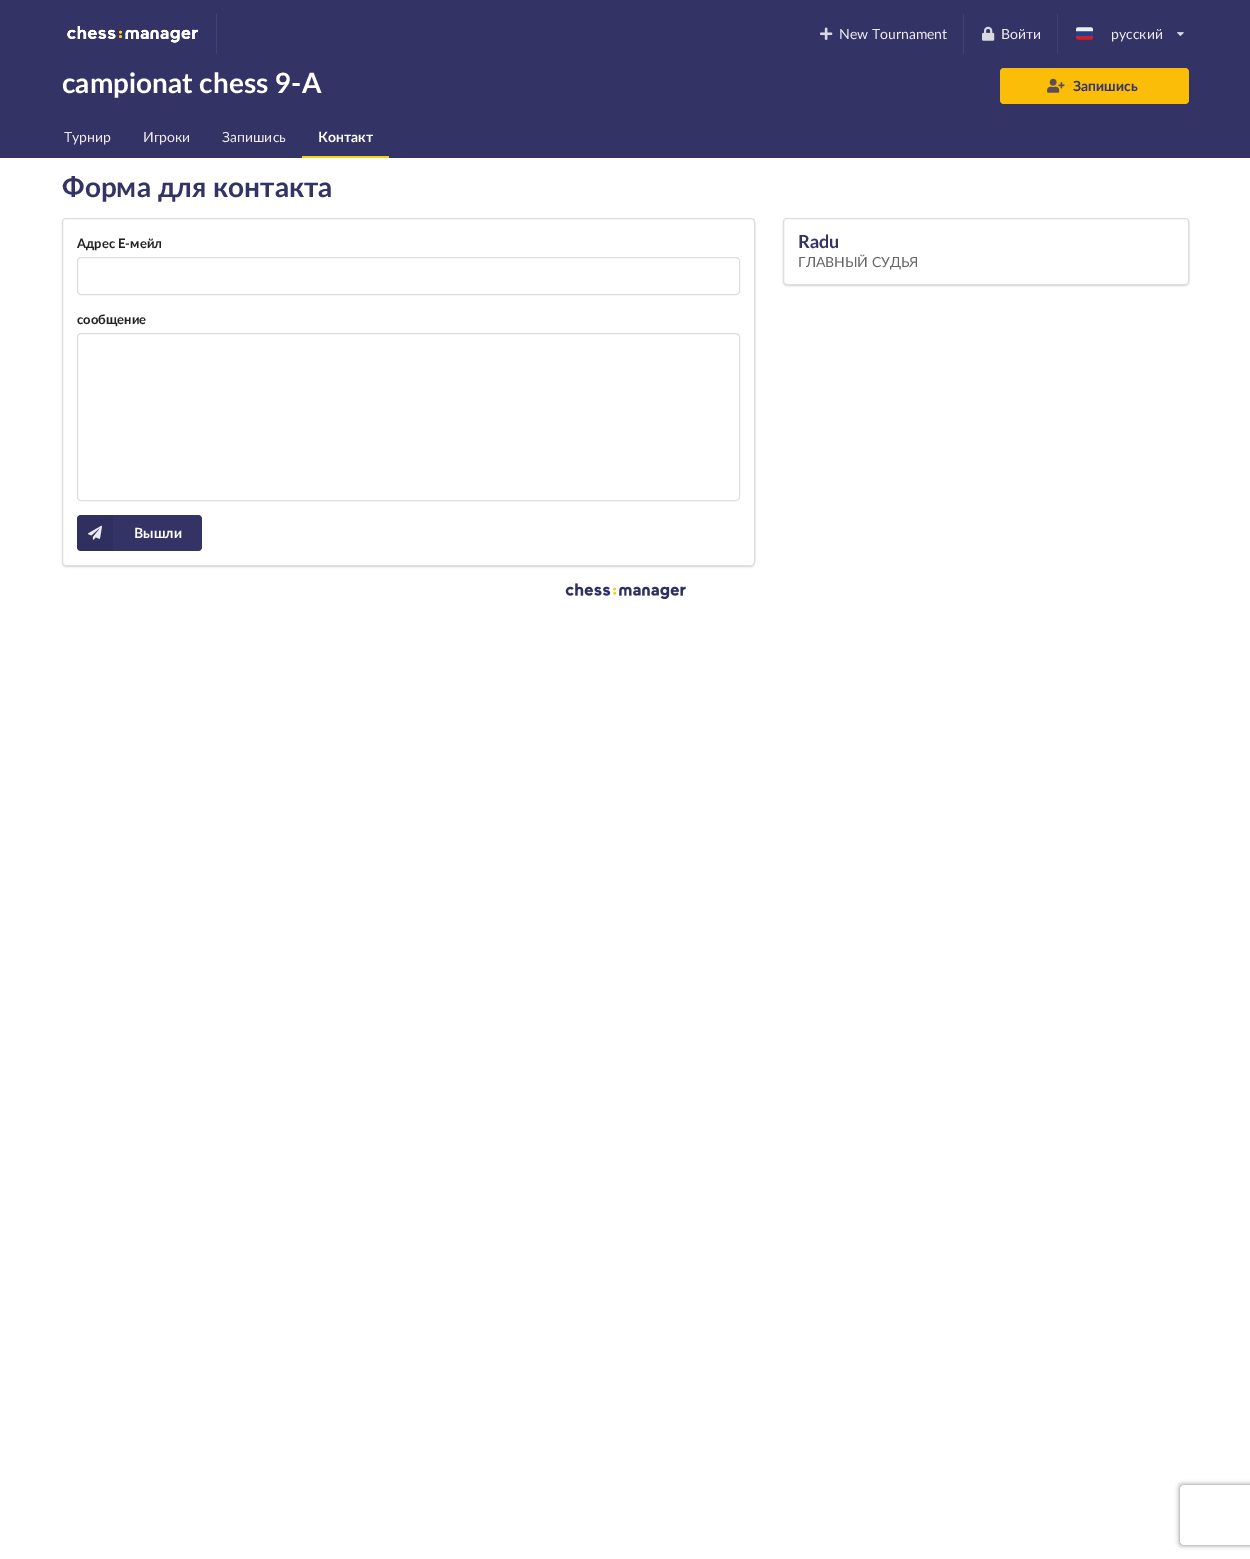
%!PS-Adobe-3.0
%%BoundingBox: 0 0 1250 1559
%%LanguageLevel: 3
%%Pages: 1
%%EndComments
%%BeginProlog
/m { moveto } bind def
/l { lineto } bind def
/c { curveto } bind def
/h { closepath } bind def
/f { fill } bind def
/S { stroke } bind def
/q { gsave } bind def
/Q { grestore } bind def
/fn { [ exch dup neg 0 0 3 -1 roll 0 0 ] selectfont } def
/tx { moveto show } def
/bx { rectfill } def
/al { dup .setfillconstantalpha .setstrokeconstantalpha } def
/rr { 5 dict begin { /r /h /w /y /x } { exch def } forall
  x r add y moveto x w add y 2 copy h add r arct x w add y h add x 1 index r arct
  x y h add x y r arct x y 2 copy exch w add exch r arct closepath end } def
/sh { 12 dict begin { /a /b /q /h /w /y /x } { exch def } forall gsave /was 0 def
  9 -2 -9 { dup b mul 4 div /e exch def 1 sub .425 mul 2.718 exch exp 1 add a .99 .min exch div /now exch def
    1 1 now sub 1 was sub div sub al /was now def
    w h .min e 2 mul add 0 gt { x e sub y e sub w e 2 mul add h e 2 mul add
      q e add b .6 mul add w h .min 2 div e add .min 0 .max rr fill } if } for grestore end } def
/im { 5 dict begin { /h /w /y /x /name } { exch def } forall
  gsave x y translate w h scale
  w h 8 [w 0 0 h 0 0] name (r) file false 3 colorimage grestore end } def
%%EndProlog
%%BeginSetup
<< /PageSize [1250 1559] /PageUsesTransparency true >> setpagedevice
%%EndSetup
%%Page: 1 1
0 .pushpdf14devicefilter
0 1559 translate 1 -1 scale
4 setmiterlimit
1 setgray
0 0 1250 1559 bx
0.2 0.2 0.396 setrgbcolor
0 0 1250 158 bx
(image0.raw) 67 26 131 17 im
0.263 0.263 0.443 setrgbcolor
216 14 1 40 bx
(image1.raw) 820 27 13 13 im
/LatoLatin-Regular 14 fn
0.922 0.922 0.941 setrgbcolor
(New Tournament) 839 39 tx
0.263 0.263 0.443 setrgbcolor
963 14 1 40 bx
(image2.raw) 982 26 13 15 im
/Lato-Regular 14 fn
0.922 0.922 0.941 setrgbcolor
(Войти) 1001 39 tx
0.263 0.263 0.443 setrgbcolor
1057 14 1 40 bx
(image3.raw) 1076 27 17 13 im
0.922 0.922 0.941 setrgbcolor
(русский) 1111 39 tx
(image4.raw) 1177 32 7 4 im
/LatoLatin-Bold 28 fn
1 setgray
(campionat chess 9-A) 62 93 tx
0.984 0.741 0.031 setrgbcolor
1000 68 189 36 4 rr f
(image5.raw) 1047 78 18 15 im
/Lato-Bold 14 fn
0.2 0.2 0.396 setrgbcolor
(Запишись) 1073 91 tx
/Lato-Regular 14 fn
0.922 0.922 0.941 setrgbcolor
(Турнир) 64 142 tx
(Игроки) 143 142 tx
(Запишись) 222 142 tx
0.988 0.808 0.067 setrgbcolor
302 156 87 2 bx
/Lato-Bold 14 fn
1 setgray
(Контакт) 318 142 tx
/Lato-Bold 28 fn
0.2 0.2 0.396 setrgbcolor
(Форма для контакта) 62 197 tx
0.133 0.141 0.149 setrgbcolor
62 219 693 348 4 1 0.15 sh
1 setgray
62 218 693 348 4 rr f
0.15 al
0.133 0.141 0.149 setrgbcolor
62.5 218.5 692 347 3.5 rr S
/Lato-Bold 13 fn
1 al
0.129 setgray
(Адрес Е-мейл) 77 248 tx
0.871 setgray
77.5 257.5 662 37 3.5 rr S
0.129 setgray
(сообщение) 77 324 tx
0.871 setgray
77.5 333.5 662 167 3.5 rr S
0.2 0.2 0.396 setrgbcolor
77 515 125 36 4 rr f
0.05 al
0 setgray
77 515 36 36 bx
1 al
(image6.raw) 88 525 14 15 im
/Lato-Bold 14 fn
1 setgray
(Вышли) 134 538 tx
q
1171 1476 m 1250 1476 l 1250 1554 l 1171 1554 l h 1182 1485 m 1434 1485 l 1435 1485 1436 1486 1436 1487 c 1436 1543 l 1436 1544 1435 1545 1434 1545 c 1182 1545 l 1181 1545 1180 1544 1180 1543 c 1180 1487 l 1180 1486 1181 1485 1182 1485 c h eoclip newpath
0.502 setgray
1180 1485 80 60 2 2.5 1 sh
Q
0.133 0.141 0.149 setrgbcolor
783 219 406 67 4 1 0.15 sh
1 setgray
783 218 406 67 4 rr f
0.15 al
0.133 0.141 0.149 setrgbcolor
783.5 218.5 405 66 3.5 rr S
/LatoLatin-Bold 18 fn
1 al
0.2 0.2 0.396 setrgbcolor
(Radu) 798 248 tx
/Lato-Regular 14 fn
0.4 setgray
(ГЛАВНЫЙ СУДЬЯ) 798 267 tx
(image7.raw) 565 583 121 17 im
.poppdf14devicefilter showpage
%%EOF
